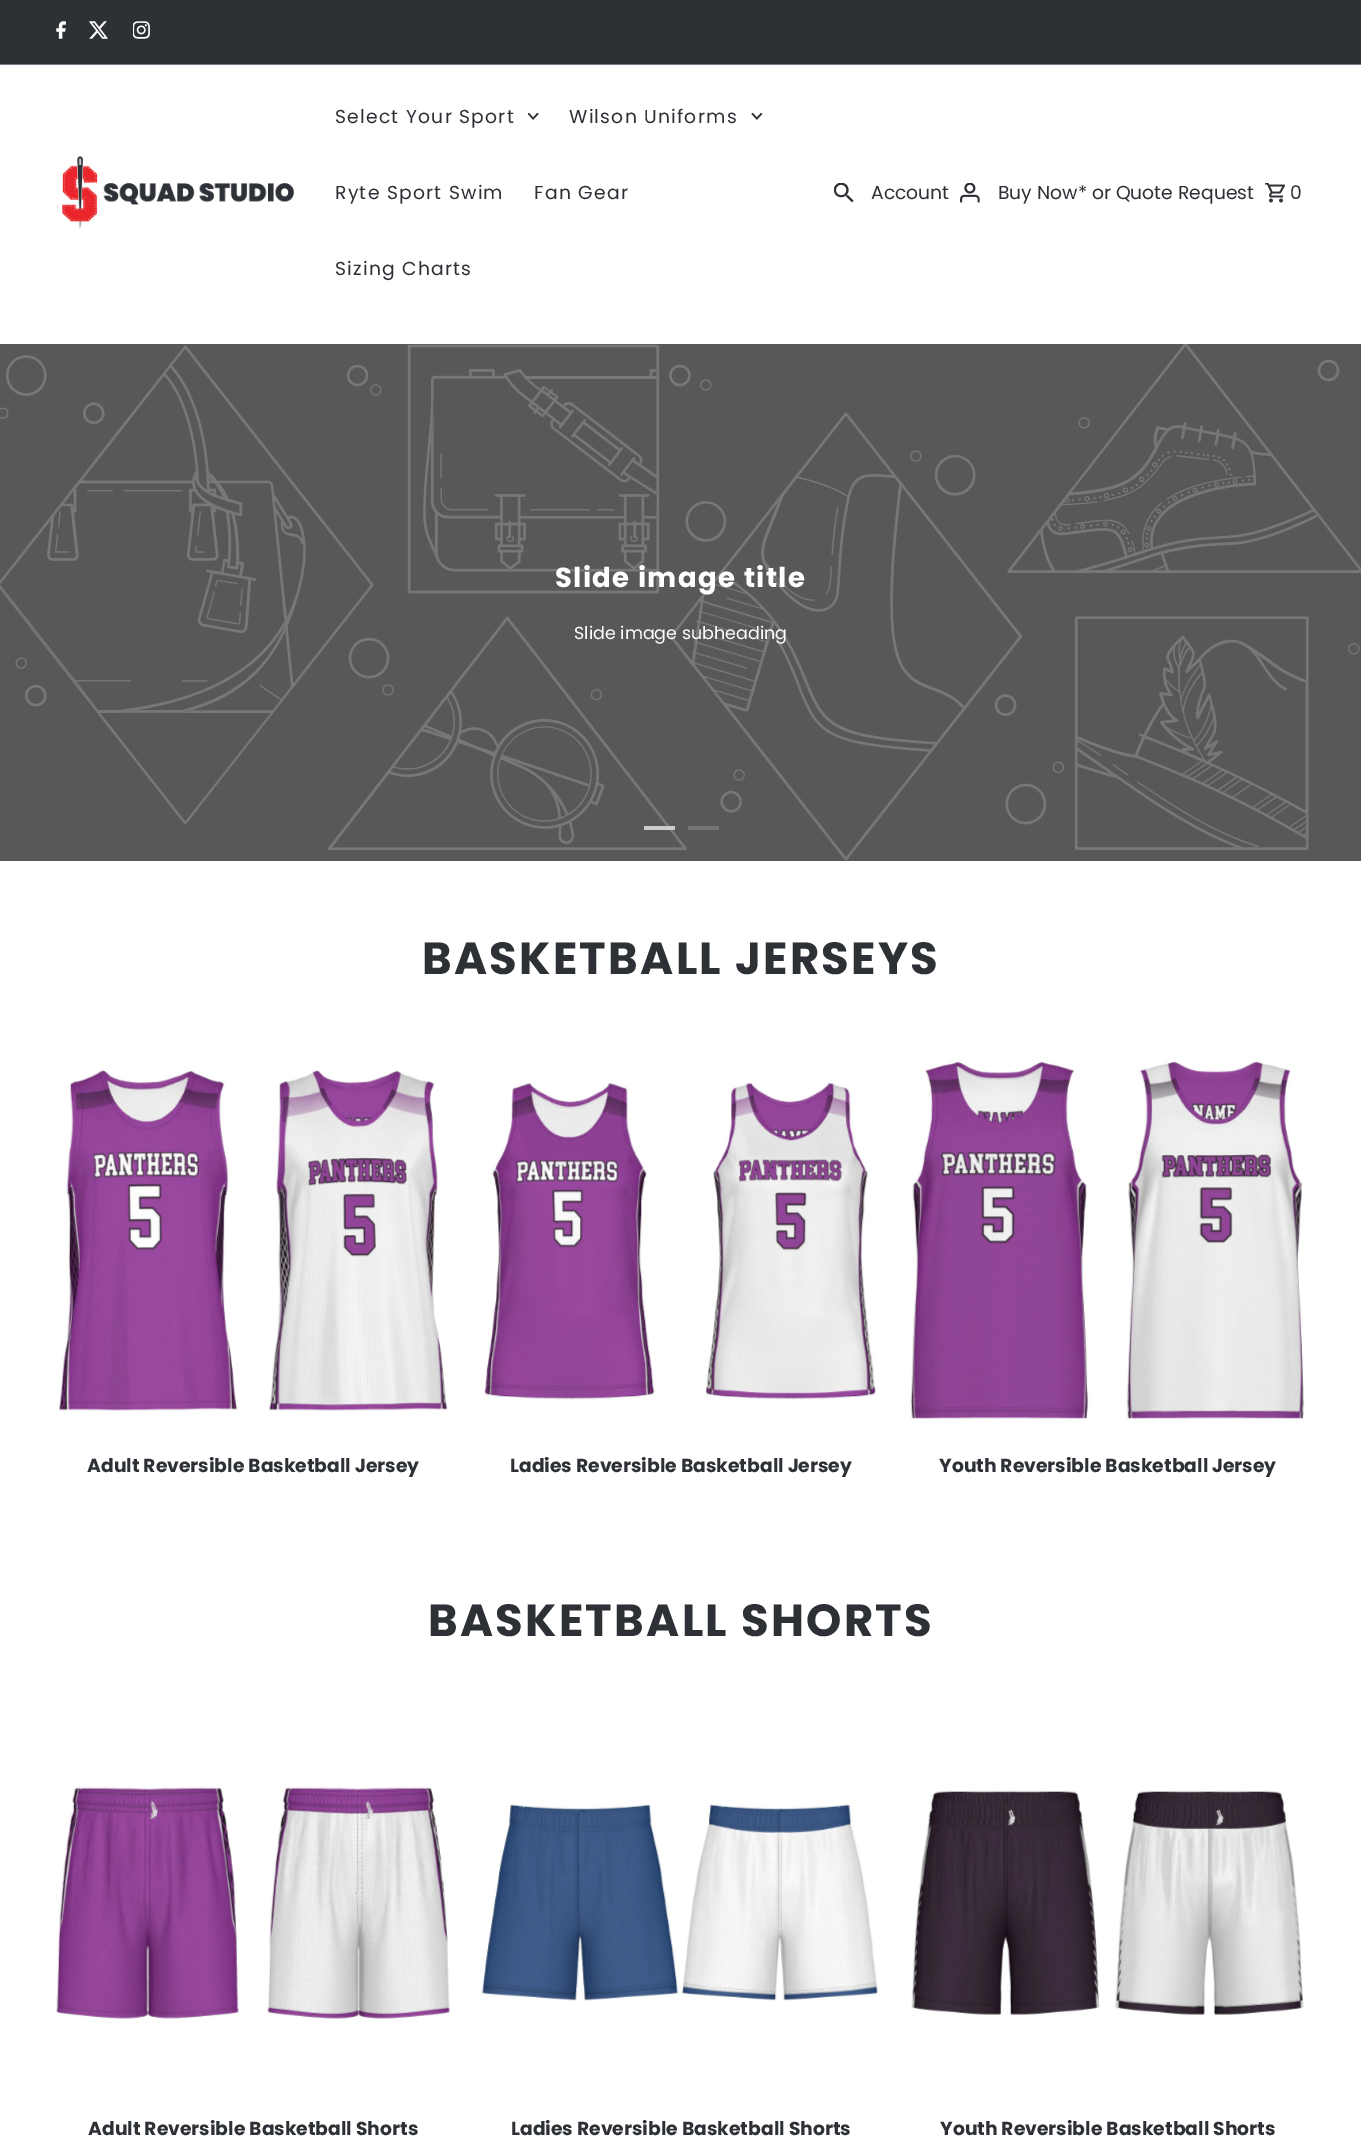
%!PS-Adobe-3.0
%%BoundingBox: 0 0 1361 2140
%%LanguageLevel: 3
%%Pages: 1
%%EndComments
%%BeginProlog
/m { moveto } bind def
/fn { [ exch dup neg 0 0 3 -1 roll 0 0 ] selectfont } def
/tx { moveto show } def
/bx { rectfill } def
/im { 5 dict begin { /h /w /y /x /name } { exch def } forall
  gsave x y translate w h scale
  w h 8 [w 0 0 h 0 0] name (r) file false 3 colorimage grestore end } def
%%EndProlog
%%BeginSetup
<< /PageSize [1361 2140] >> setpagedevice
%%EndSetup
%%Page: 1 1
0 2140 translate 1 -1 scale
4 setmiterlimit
1 setgray
0 0 1361 2140 bx
0.451 0.49 0.537 setrgbcolor
0 64 1361 1 bx
0.176 0.192 0.212 setrgbcolor
0 0 1361 64 bx
(image0.raw) 56 21 10 18 im
(image1.raw) 89 21 19 18 im
(image2.raw) 133 21 17 18 im
(image3.raw) 62 155 232 73 im
/Poppins-Regular 18.75 fn
335 123 m 1.25 0 (Select Your Sport) ashow
(image4.raw) 528 113 11 7 im
569 123 m 1.25 0 (Wilson Uniforms) ashow
(image5.raw) 751 113 12 7 im
335 199 m 1.25 0 (Ryte Sport Swim) ashow
534 199 m 1.25 0 (Fan Gear) ashow
335 275 m 1.25 0 (Sizing Charts) ashow
(image6.raw) 834 183 20 20 im
(Account) 871 199 tx
(image7.raw) 960 183 20 20 im
(Buy Now* or Quote Request) 998 199 tx
(image8.raw) 1265 183 20 20 im
(0) 1290 199 tx
0.345 setgray
0 344 1361 517 bx
(image9.raw) 0 344 1361 517 im
/Poppins-Bold 27.5 fn
1 setgray
555 587 m 1.4 0 (Slide image title) ashow
/Poppins-Regular 17.5 fn
(Slide image subheading) 574 639 tx
0.8 setgray
644 826 31 4 bx
0.459 setgray
688 826 31 4 bx
/Poppins-Bold 45 fn
0.176 0.192 0.212 setrgbcolor
422 974 m 2.25 0 (BASKETBALL JERSEYS) ashow
(image10.raw) 58 1070 390 341 im
/Poppins-Bold 18.75 fn
(Adult Reversible Basketball Jersey) 87 1472 tx
(image11.raw) 484 1082 392 318 im
(Ladies Reversible Basketball Jersey) 510 1472 tx
(image12.raw) 910 1061 395 359 im
(Youth Reversible Basketball Jersey) 939 1472 tx
/Poppins-Bold 45 fn
428 1636 m 2.25 0 (BASKETBALL SHORTS) ashow
(image13.raw) 55 1787 396 232 im
/Poppins-Bold 18.75 fn
(Adult Reversible Basketball Shorts) 88 2135 tx
(image14.raw) 482 1804 396 199 im
(Ladies Reversible Basketball Shorts) 511 2135 tx
(image15.raw) 911 1790 393 225 im
(Youth Reversible Basketball Shorts) 940 2135 tx
showpage
%%EOF
